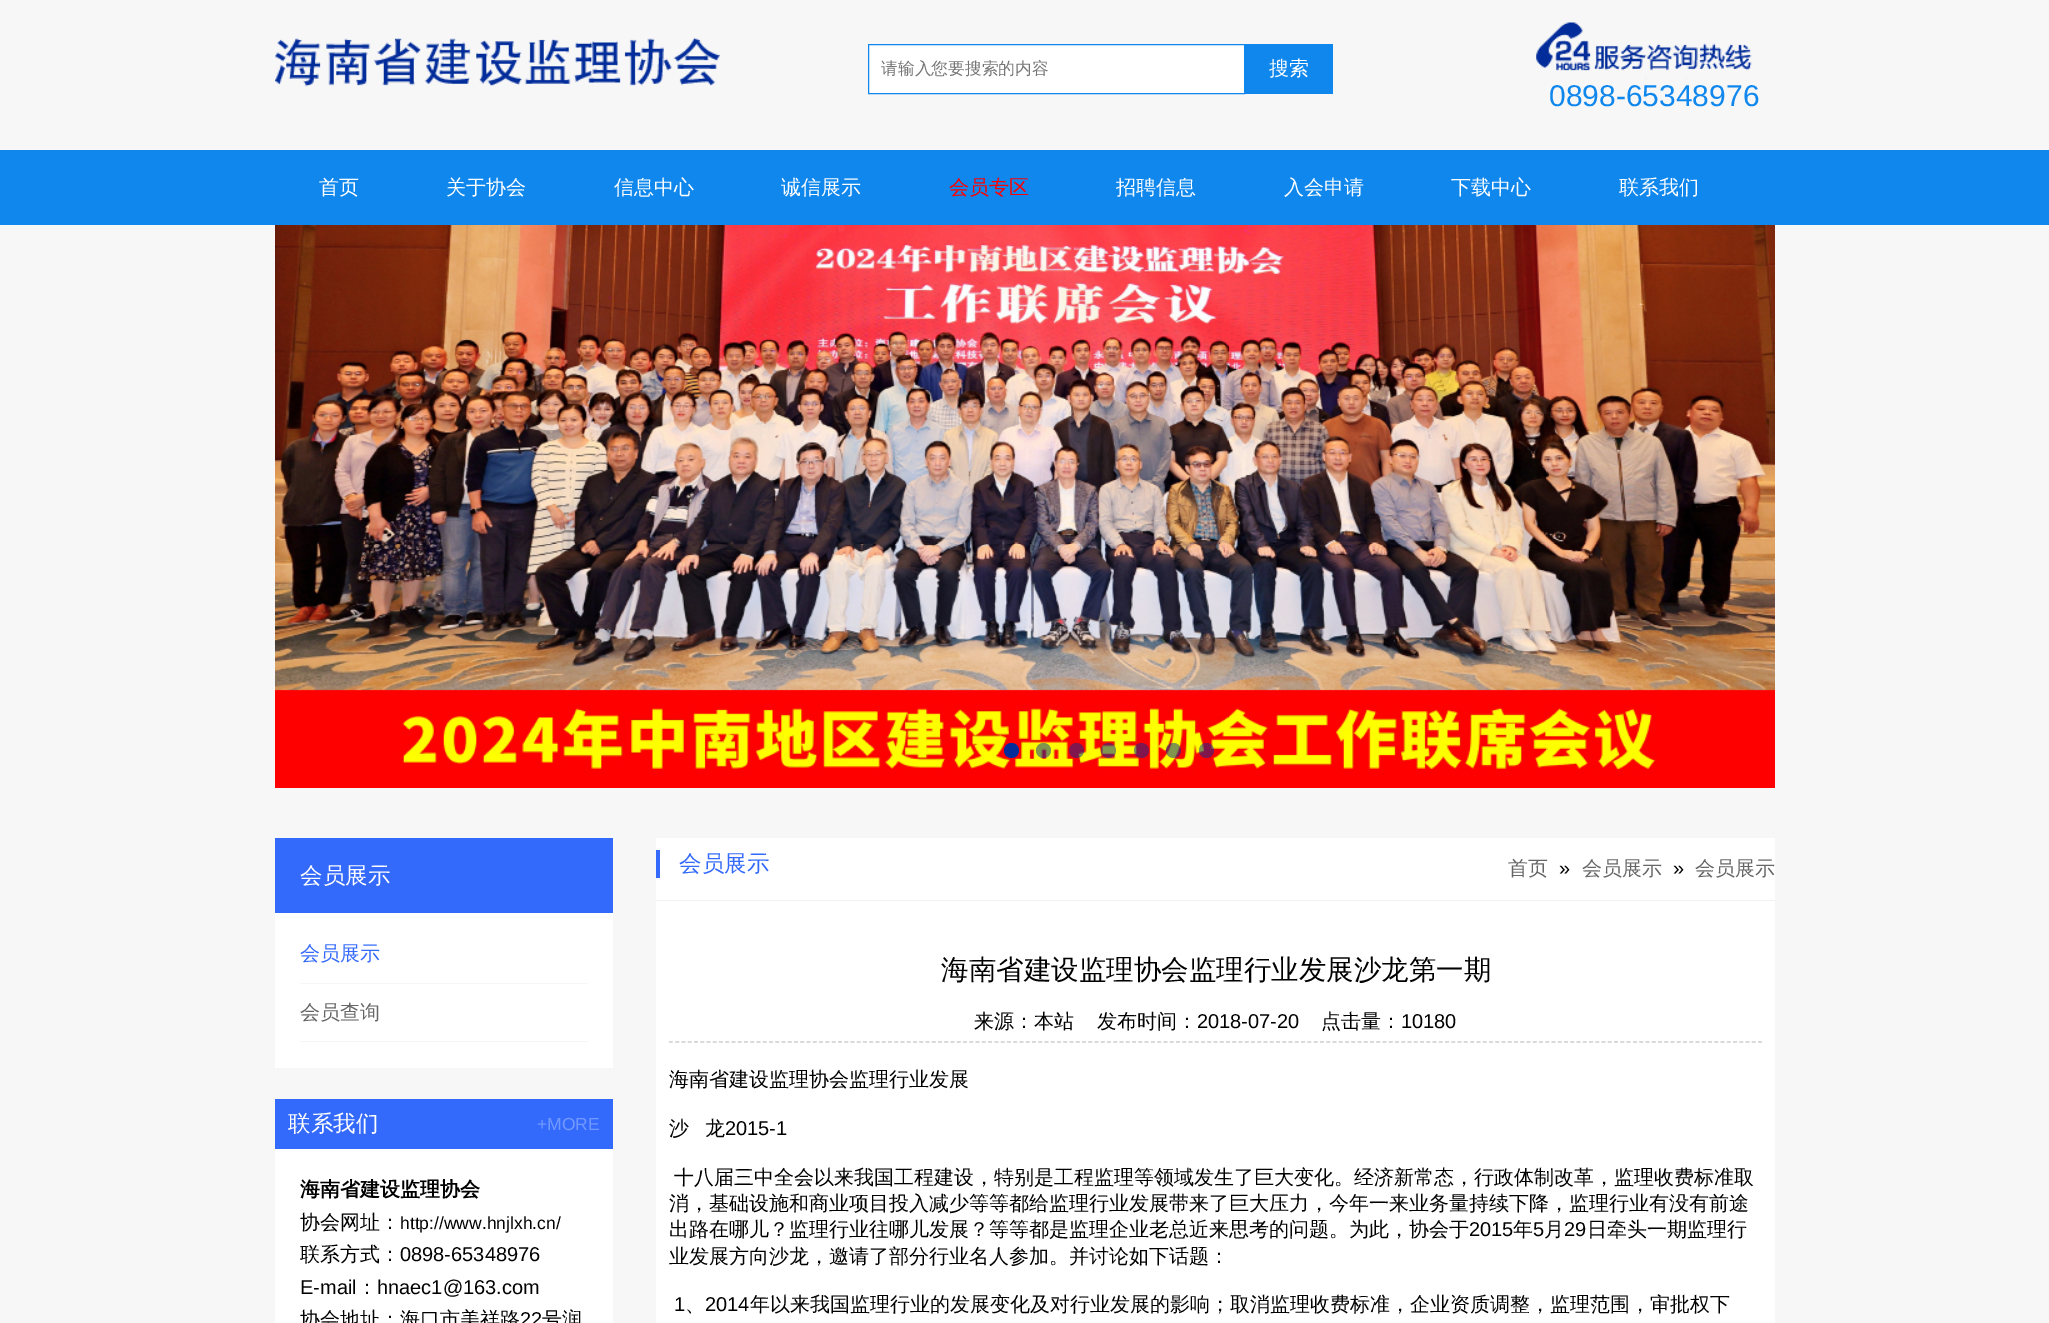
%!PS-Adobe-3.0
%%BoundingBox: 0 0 2049 1323
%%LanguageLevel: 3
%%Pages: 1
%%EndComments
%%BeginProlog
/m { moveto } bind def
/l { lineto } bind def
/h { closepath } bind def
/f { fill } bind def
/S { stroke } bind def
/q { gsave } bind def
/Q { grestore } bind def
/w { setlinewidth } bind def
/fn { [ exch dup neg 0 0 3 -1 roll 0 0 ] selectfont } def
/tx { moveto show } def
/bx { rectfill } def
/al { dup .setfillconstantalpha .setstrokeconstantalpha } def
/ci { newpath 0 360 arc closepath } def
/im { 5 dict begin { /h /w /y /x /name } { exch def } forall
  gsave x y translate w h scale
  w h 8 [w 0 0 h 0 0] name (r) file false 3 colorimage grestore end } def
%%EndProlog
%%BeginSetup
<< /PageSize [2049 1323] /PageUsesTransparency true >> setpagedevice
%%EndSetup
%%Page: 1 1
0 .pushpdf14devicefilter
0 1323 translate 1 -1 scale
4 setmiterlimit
0.969 setgray
0 0 2049 1323 bx
(image0.raw) 275 37 445 50 im
1 setgray
868.5 44.5 m 1244.5 44.5 l 1244.5 93.5 l 868.5 93.5 l h q f Q
0.063 0.529 0.929 setrgbcolor
S
/WenQuanYiZenHei-Medium 16.75 fn
0.459 setgray
(请输入您要搜索的内容) 881 74 tx
0.063 0.529 0.929 setrgbcolor
1245 44 88 50 bx
/WenQuanYiZenHei-Medium 20 fn
1 setgray
(搜索) 1269 75 tx
(image1.raw) 1536 22 216 57 im
/LiberationSans-Regular 30 fn
0.063 0.529 0.929 setrgbcolor
(0898-65348976) 1549 106 tx
0 150 2049 75 bx
/WenQuanYiZenHei-Medium 20 fn
1 setgray
(首页) 319 194 tx
(关于协会) 446 194 tx
(信息中心) 614 194 tx
(诚信展示) 781 194 tx
1 0 0 setrgbcolor
(会员专区) 949 194 tx
1 setgray
(招聘信息) 1116 194 tx
(入会申请) 1284 194 tx
(下载中心) 1451 194 tx
(联系我们) 1619 194 tx
(image2.raw) 275 225 1500 563 im
0.008 0.173 0.604 setrgbcolor
1011.5 750.5 7.5 ci f
0.5 al
1043.5 750.5 7.5 ci f
1076.5 750.5 7.5 ci f
1108.5 750.5 7.5 ci f
1141.5 750.5 7.5 ci f
1173.5 750.5 7.5 ci f
1206.5 750.5 7.5 ci f
1 al
1 setgray
275 913 338 155 bx
0.204 0.416 0.984 setrgbcolor
275 838 338 75 bx
/WenQuanYiZenHei-Medium 22.5 fn
1 setgray
(会员展示) 300 883 tx
0.965 setgray
300 983 288 1 bx
/WenQuanYiZenHei-Medium 20 fn
0.204 0.416 0.984 setrgbcolor
(会员展示) 300 960 tx
0.965 setgray
300 1041 288 1 bx
0.4 setgray
(会员查询) 300 1019 tx
0.204 0.416 0.984 setrgbcolor
275 1099 338 50 bx
/WenQuanYiZenHei-Medium 22.5 fn
1 setgray
(联系我们) 288 1131 tx
/LiberationSans-Regular 17.5 fn
0.447 0.6 1 setrgbcolor
(+MORE) 537 1130 tx
1 setgray
275 1149 338 174 bx
/WenQuanYiZenHei-Bold 20 fn
0 setgray
(海南省建设监理协会) 300 1196 tx
/WenQuanYiZenHei-Medium 20 fn
(协会网址：) 300 1229 tx
/LiberationSans-Regular 17.5 fn
(http://www.hnjlxh.cn/) 400 1229 tx
/WenQuanYiZenHei-Medium 20 fn
(联系方式：) 300 1261 tx
/LiberationSans-Regular 20 fn
(0898-65348976) 400 1261 tx
(E-mail) 300 1294 tx
/WenQuanYiZenHei-Medium 20 fn
(：) 357 1294 tx
/LiberationSans-Regular 20 fn
(hnaec1@163.com) 377 1294 tx
/WenQuanYiZenHei-Medium 20 fn
(协会地址：海口市美祥路) 300 1326 tx
/LiberationSans-Regular 20 fn
(22) 520 1326 tx
/WenQuanYiZenHei-Medium 20 fn
(号润) 542 1326 tx
1 setgray
656 838 1119 485 bx
0.949 setgray
656 900 1119 1 bx
0.204 0.416 0.984 setrgbcolor
656 850 4 28 bx
/WenQuanYiZenHei-Medium 22.5 fn
(会员展示) 679 871 tx
/WenQuanYiZenHei-Medium 20 fn
0.4 setgray
(首页) 1508 875 tx
/LiberationSans-Regular 20 fn
0 setgray
(») 1559 875 tx
/WenQuanYiZenHei-Medium 20 fn
0.4 setgray
(会员展示) 1582 875 tx
/LiberationSans-Regular 20 fn
0 setgray
(») 1673 875 tx
/WenQuanYiZenHei-Medium 20 fn
0.4 setgray
(会员展示) 1695 875 tx
/WenQuanYiZenHei-Medium 27.5 fn
0 setgray
(海南省建设监理协会监理行业发展沙龙第一期) 941 979 tx
0.8 setgray
1.2 w
[3.75 2.51] 0 setdash
669 1042 m 1762.5 1042 l S
/WenQuanYiZenHei-Medium 20 fn
0 setgray
(来源：本站) 974 1028 tx
(发布时间：) 1097 1028 tx
/LiberationSans-Regular 20 fn
(2018-07-20) 1197 1028 tx
/WenQuanYiZenHei-Medium 20 fn
(点击量：) 1321 1028 tx
/LiberationSans-Regular 20 fn
(10180) 1401 1028 tx
/WenQuanYiZenHei-Medium 20 fn
(海南省建设监理协会监理行业发展) 669 1086 tx
(沙) 669 1135 tx
(龙) 705 1135 tx
/LiberationSans-Regular 20 fn
(2015-1) 725 1135 tx
/WenQuanYiZenHei-Medium 20 fn
(十八届三中全会以来我国工程建设，特别是工程监理等领域发生了巨大变化。经济新常态，行政体制改革，监理收费标准取) 674 1184 tx
(消，基础设施和商业项目投入减少等等都给监理行业发展带来了巨大压力，今年一来业务量持续下降，监理行业有没有前途) 669 1210 tx
(出路在哪儿？监理行业往哪儿发展？等等都是监理企业老总近来思考的问题。为此，协会于) 669 1236 tx
/LiberationSans-Regular 20 fn
(2015) 1469 1236 tx
/WenQuanYiZenHei-Medium 20 fn
(年) 1513 1236 tx
/LiberationSans-Regular 20 fn
(5) 1533 1236 tx
/WenQuanYiZenHei-Medium 20 fn
(月) 1544 1236 tx
/LiberationSans-Regular 20 fn
(29) 1564 1236 tx
/WenQuanYiZenHei-Medium 20 fn
(日牵头一期监理行) 1587 1236 tx
(业发展方向沙龙，邀请了部分行业名人参加。并讨论如下话题：) 669 1263 tx
/LiberationSans-Regular 20 fn
(1) 674 1311 tx
/WenQuanYiZenHei-Medium 20 fn
(、) 685 1311 tx
/LiberationSans-Regular 20 fn
(2014) 705 1311 tx
/WenQuanYiZenHei-Medium 20 fn
(年以来我国监理行业的发展变化及对行业发展的影响；取消监理收费标准，企业资质调整，监理范围，审批权下) 750 1311 tx
.poppdf14devicefilter showpage
%%EOF
